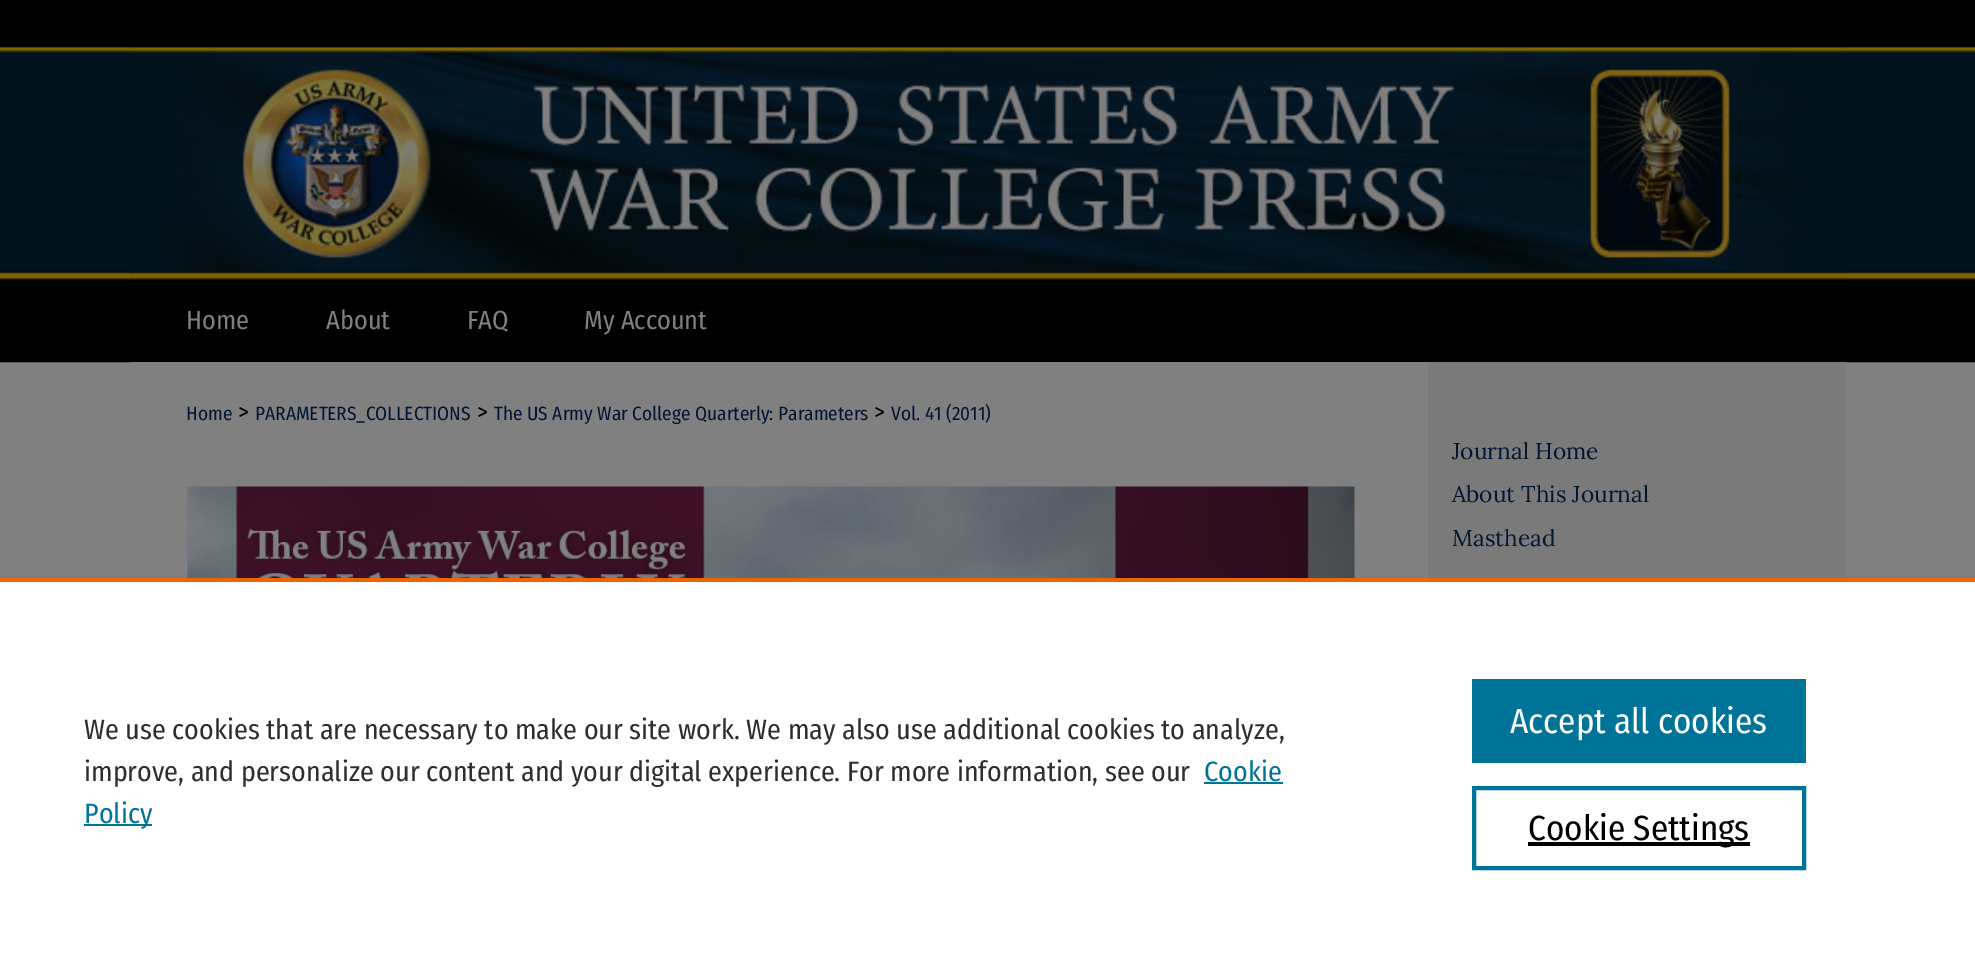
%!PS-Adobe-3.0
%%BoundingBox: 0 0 1975 961
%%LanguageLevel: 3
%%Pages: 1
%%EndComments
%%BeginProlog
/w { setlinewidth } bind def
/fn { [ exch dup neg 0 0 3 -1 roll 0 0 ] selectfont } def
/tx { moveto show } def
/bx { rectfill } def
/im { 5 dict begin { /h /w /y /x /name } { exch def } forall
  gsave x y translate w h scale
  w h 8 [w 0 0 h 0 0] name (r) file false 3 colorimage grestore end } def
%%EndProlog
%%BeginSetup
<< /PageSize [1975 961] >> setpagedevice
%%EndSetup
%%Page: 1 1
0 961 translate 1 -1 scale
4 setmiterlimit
0.502 setgray
0 0 1975 961 bx
(image0.raw) 0 0 1975 363 im
0 setgray
131 46 1715 235 bx
(image1.raw) 131 46 1715 234 im
(image2.raw) 131 47 1 233 im
/FiraSansCondensed-Regular 26.25 fn
0.502 setgray
(Home) 186 329 tx
(About) 326 329 tx
(FAQ) 467 329 tx
(My Account) 584 329 tx
0.478 setgray
1428 362 418 216 bx
0.502 setgray
131 362 1297 1 bx
/FiraSansCondensed-Regular 19.25 fn
0 0.09 0.196 setrgbcolor
(Home) 186 420 tx
/FiraSansCondensed-Regular 24 fn
0 setgray
(>) 238 420 tx
/FiraSansCondensed-Regular 19.25 fn
0 0.09 0.196 setrgbcolor
(PARAMETERS_COLLECTIONS) 255 420 tx
/FiraSansCondensed-Regular 24 fn
0 setgray
(>) 477 420 tx
/FiraSansCondensed-Regular 19.25 fn
0 0.09 0.196 setrgbcolor
(The US Army War College Quarterly: Parameters) 494 420 tx
/FiraSansCondensed-Regular 24 fn
0 setgray
(>) 874 420 tx
/FiraSansCondensed-Regular 19.25 fn
0 0.09 0.196 setrgbcolor
(Vol. 41 \(2011\)) 891 420 tx
(image3.raw) 187 486 1168 92 im
/Lora-Regular 22.75 fn
(Journal Home) 1452 459 tx
(About This Journal) 1452 502 tx
(Masthead) 1452 546 tx
1 setgray
0 582 1975 379 bx
0.922 0.396 0 setrgbcolor
0 578 1975 4 bx
/FiraSansCondensed-Regular 28 fn
0.18 setgray
(We use cookies that are necessary to make our site work. We may also use additional cookies to analyze,) 84 739 tx
(improve, and personalize our content and your digital experience. For more information, see our) 84 781 tx
0 0.451 0.596 setrgbcolor
(Cookie) 1204 781 tx
1204 782 79 2 bx
84 824 68 2 bx
(Policy) 84 823 tx
1472 679 334 84 bx
/FiraSansCondensed-Regular 35 fn
1 setgray
(Accept all cookies) 1510 733 tx
0 0.451 0.596 setrgbcolor
4 w
1474 788 330 80 rectstroke
0 setgray
1528 842 222 4 bx
(Cookie Settings) 1528 840 tx
showpage
%%EOF
